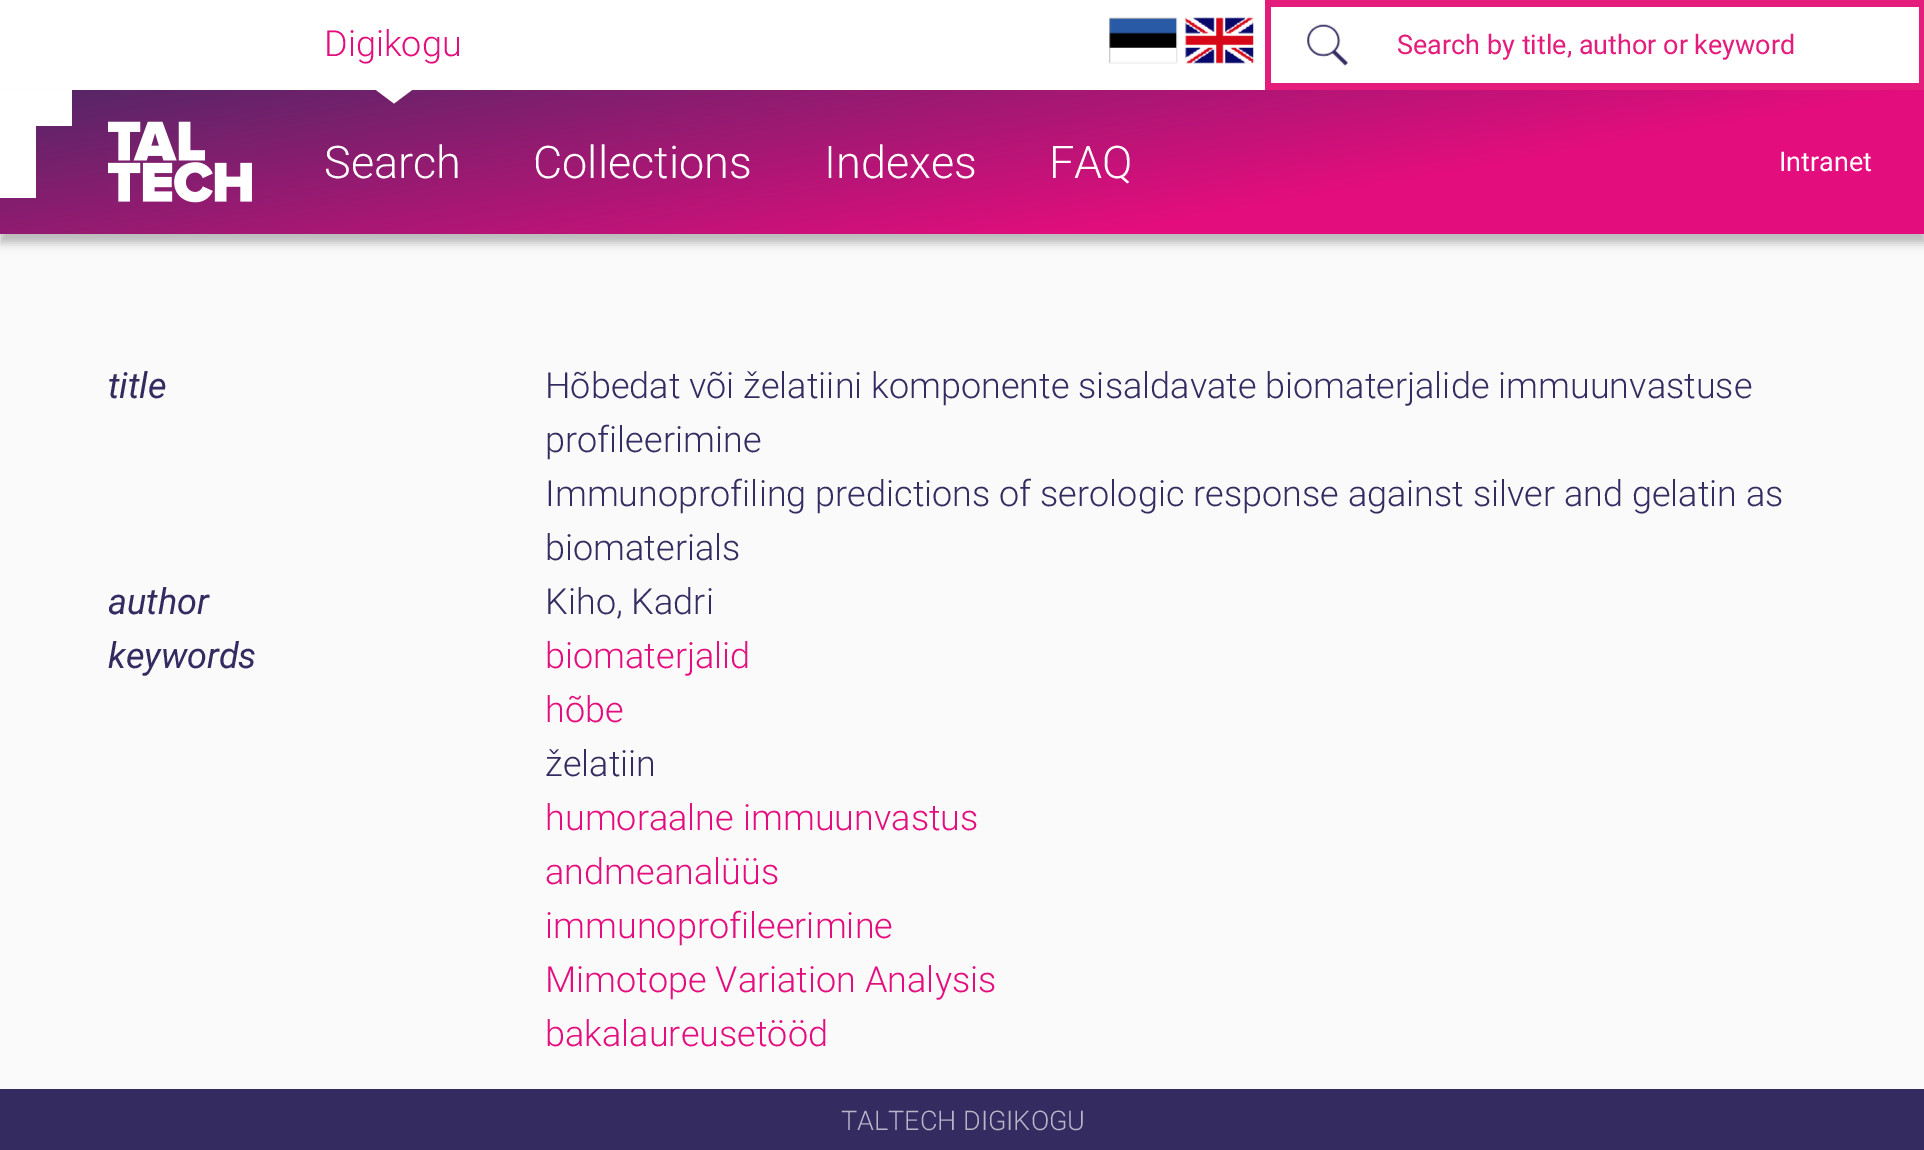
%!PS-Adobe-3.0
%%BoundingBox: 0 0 1924 1150
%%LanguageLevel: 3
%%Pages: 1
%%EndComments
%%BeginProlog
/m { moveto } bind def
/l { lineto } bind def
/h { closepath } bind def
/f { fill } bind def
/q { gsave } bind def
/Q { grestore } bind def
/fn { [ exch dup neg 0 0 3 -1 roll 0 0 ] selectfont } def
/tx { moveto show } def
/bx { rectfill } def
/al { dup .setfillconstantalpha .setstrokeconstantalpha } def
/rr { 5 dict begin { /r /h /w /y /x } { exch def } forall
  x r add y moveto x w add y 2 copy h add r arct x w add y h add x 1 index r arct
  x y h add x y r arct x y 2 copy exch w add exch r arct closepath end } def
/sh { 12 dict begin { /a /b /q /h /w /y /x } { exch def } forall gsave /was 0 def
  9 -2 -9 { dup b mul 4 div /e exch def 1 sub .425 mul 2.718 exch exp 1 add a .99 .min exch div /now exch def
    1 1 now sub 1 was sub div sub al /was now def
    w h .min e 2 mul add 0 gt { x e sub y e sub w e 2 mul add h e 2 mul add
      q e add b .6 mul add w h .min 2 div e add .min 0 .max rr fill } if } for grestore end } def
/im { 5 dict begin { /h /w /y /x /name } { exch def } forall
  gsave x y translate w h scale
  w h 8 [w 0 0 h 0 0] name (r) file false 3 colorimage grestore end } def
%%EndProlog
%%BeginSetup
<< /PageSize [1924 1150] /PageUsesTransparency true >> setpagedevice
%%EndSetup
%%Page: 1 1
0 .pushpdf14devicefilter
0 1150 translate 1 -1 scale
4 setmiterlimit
0.984 0.98 0.984 setrgbcolor
0 0 1924 1150 bx
1 setgray
0 0 1265 90 bx
/Roboto-Light 36 fn
0.894 0.051 0.494 setrgbcolor
(Digikogu) 324 56 tx
0 setgray
0 99 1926 144 0 4.5 0.25 sh
q 0 90 m 1924 90 l 1924 234 l 0 234 l h clip newpath
<< /ShadingType 2 /ColorSpace /DeviceRGB /Coords [922 -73 1004 397] /Extend [true true] /Function << /FunctionType 3 /Domain [0 1] /Functions [<< /FunctionType 2 /Domain [0 1] /C0 [0.318 0.153 0.4] /C1 [0.894 0.051 0.494] /N 1 >> << /FunctionType 2 /Domain [0 1] /C0 [0.894 0.051 0.494] /C1 [0.894 0.051 0.494] /N 1 >>] /Bounds [0.7] /Encode [0 1 0 1] >> >> shfill Q
1 setgray
376 90 m 412 90 l 394 103.5 l h f
(image0.raw) 1109 17 69 47 im
(image1.raw) 1185 17 69 47 im
0.894 0.114 0.49 setrgbcolor
1265 0 659 90 bx
1 setgray
1271 7 648 76 bx
(image2.raw) 1307 24 42 42 im
/Roboto-Regular 27 fn
0.894 0.114 0.49 setrgbcolor
(Search by title, author or keyword) 1397 54 tx
1 setgray
0 90 72 36 bx
0 126 36 72 bx
(image3.raw) 108 121 144 82 im
/Roboto-Light 45 fn
(Search) 324 178 tx
(Collections) 533 178 tx
(Indexes) 824 178 tx
(FAQ) 1049 178 tx
/Roboto-Regular 27 fn
(Intranet) 1779 171 tx
/Roboto-Italic 36 fn
0.204 0.173 0.38 setrgbcolor
(title) 108 398 tx
/Roboto-Light 36 fn
(Hõbedat või želatiini komponente sisaldavate biomaterjalide immuunvastuse) 545 398 tx
(profileerimine) 545 452 tx
(Immunoprofiling predictions of serologic response against silver and gelatin as) 545 506 tx
(biomaterials) 545 560 tx
/Roboto-Italic 36 fn
(author) 108 614 tx
/Roboto-Light 36 fn
(Kiho, Kadri) 545 614 tx
/Roboto-Italic 36 fn
(keywords) 108 668 tx
/Roboto-Light 36 fn
0.894 0.051 0.494 setrgbcolor
(biomaterjalid) 545 668 tx
(hõbe) 545 722 tx
0.204 0.173 0.38 setrgbcolor
(želatiin) 545 776 tx
0.894 0.051 0.494 setrgbcolor
(humoraalne immuunvastus) 545 830 tx
(andmeanalüüs) 545 884 tx
(immunoprofileerimine) 545 938 tx
(Mimotope Variation Analysis) 545 992 tx
(bakalaureusetööd) 545 1046 tx
0.204 0.173 0.38 setrgbcolor
0 1089 1924 61 bx
/Roboto-Light 27 fn
0.722 0.71 0.784 setrgbcolor
(TALTECH DIGIKOGU) 841 1130 tx
.poppdf14devicefilter showpage
%%EOF
